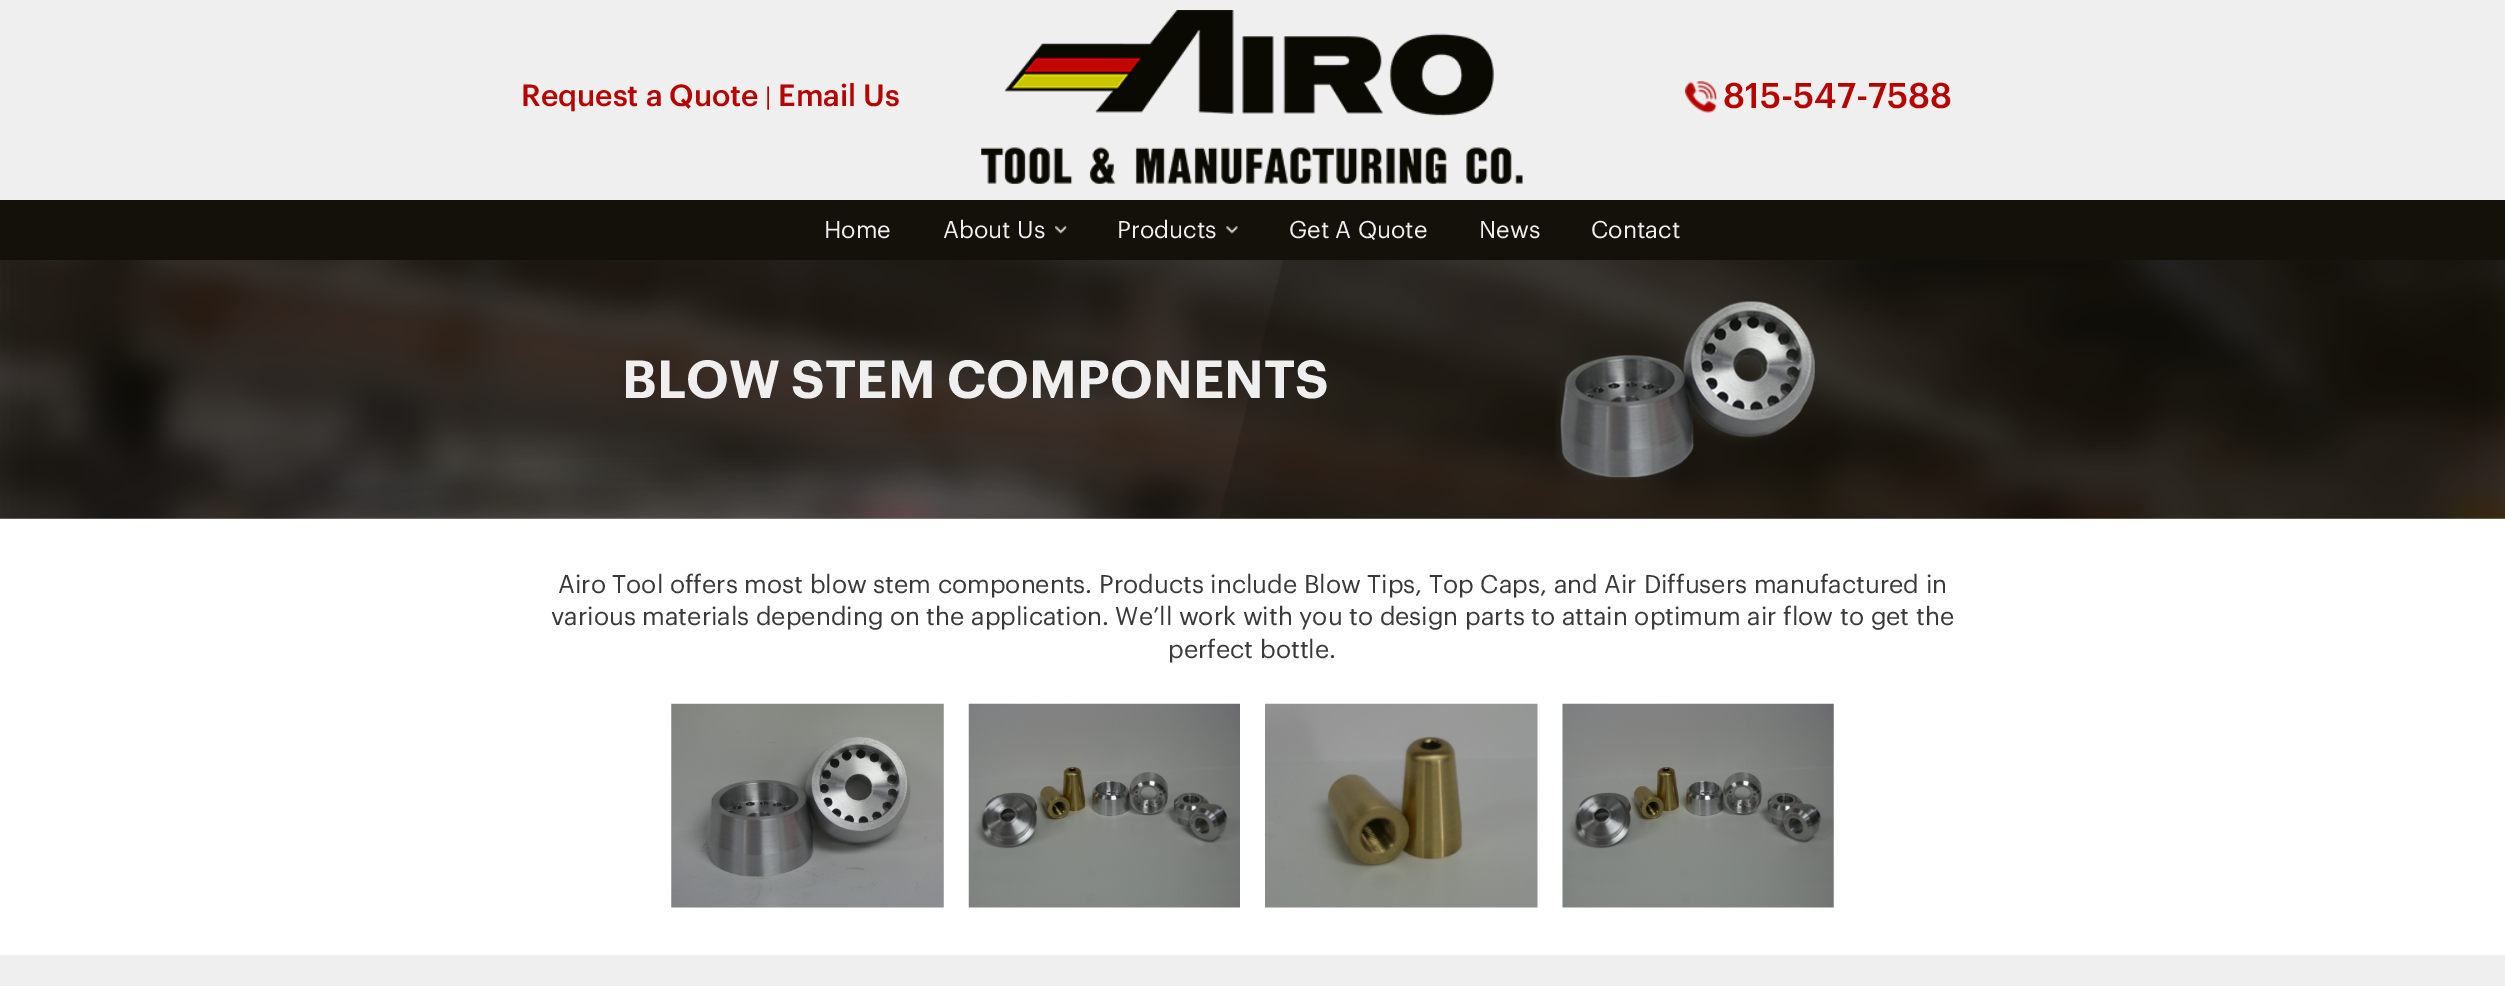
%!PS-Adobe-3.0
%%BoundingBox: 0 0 2505 986
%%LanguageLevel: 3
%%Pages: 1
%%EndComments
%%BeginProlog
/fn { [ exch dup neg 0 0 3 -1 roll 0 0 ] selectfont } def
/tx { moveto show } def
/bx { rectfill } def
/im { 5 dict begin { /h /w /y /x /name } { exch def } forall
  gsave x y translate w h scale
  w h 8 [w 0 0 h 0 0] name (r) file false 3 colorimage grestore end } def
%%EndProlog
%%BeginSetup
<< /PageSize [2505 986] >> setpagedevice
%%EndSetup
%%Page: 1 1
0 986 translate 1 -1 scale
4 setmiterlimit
1 setgray
0 0 2505 986 bx
0.941 0.937 0.937 setrgbcolor
0 0 2505 200 bx
/Graphik-Medium 30 fn
0.714 0.02 0 setrgbcolor
(Request a Quote) 521 106 tx
/Graphik-Regular 25 fn
(|) 765 106 tx
/Graphik-Medium 30 fn
(Email Us) 778 106 tx
(image0.raw) 981 10 542 174 im
(image1.raw) 1685 81 32 32 im
/Graphik-Medium 35 fn
(815-547-7588) 1723 108 tx
0.078 0.067 0.043 setrgbcolor
0 200 2505 60 bx
/Graphik-Regular 23.75 fn
0.941 0.937 0.937 setrgbcolor
(Home) 824 238 tx
(About Us) 943 238 tx
(image2.raw) 1055 226 12 8 im
(Products) 1117 238 tx
(image3.raw) 1226 226 12 8 im
(Get A Quote) 1289 238 tx
(News) 1479 238 tx
(Contact) 1591 238 tx
(image4.raw) 0 260 2505 259 im
/Graphik-SemiBold 52.5 fn
(BLOW STEM COMPONENTS) 622 398 tx
(image5.raw) 1555 301 260 179 im
/Graphik-Regular 25 fn
0.224 setgray
(Airo Tool offers most blow stem components. Products include Blow Tips, Top Caps, and Air Diffusers manufactured in) 558 593 tx
(various materials depending on the application. We’ll work with you to design parts to attain optimum air flow to get the) 551 625 tx
(perfect bottle.) 1168 658 tx
(image6.raw) 671 703 273 205 im
(image7.raw) 968 703 272 205 im
(image8.raw) 1265 703 273 205 im
(image9.raw) 1562 703 272 205 im
0.941 0.937 0.937 setrgbcolor
0 955 2505 31 bx
showpage
%%EOF
